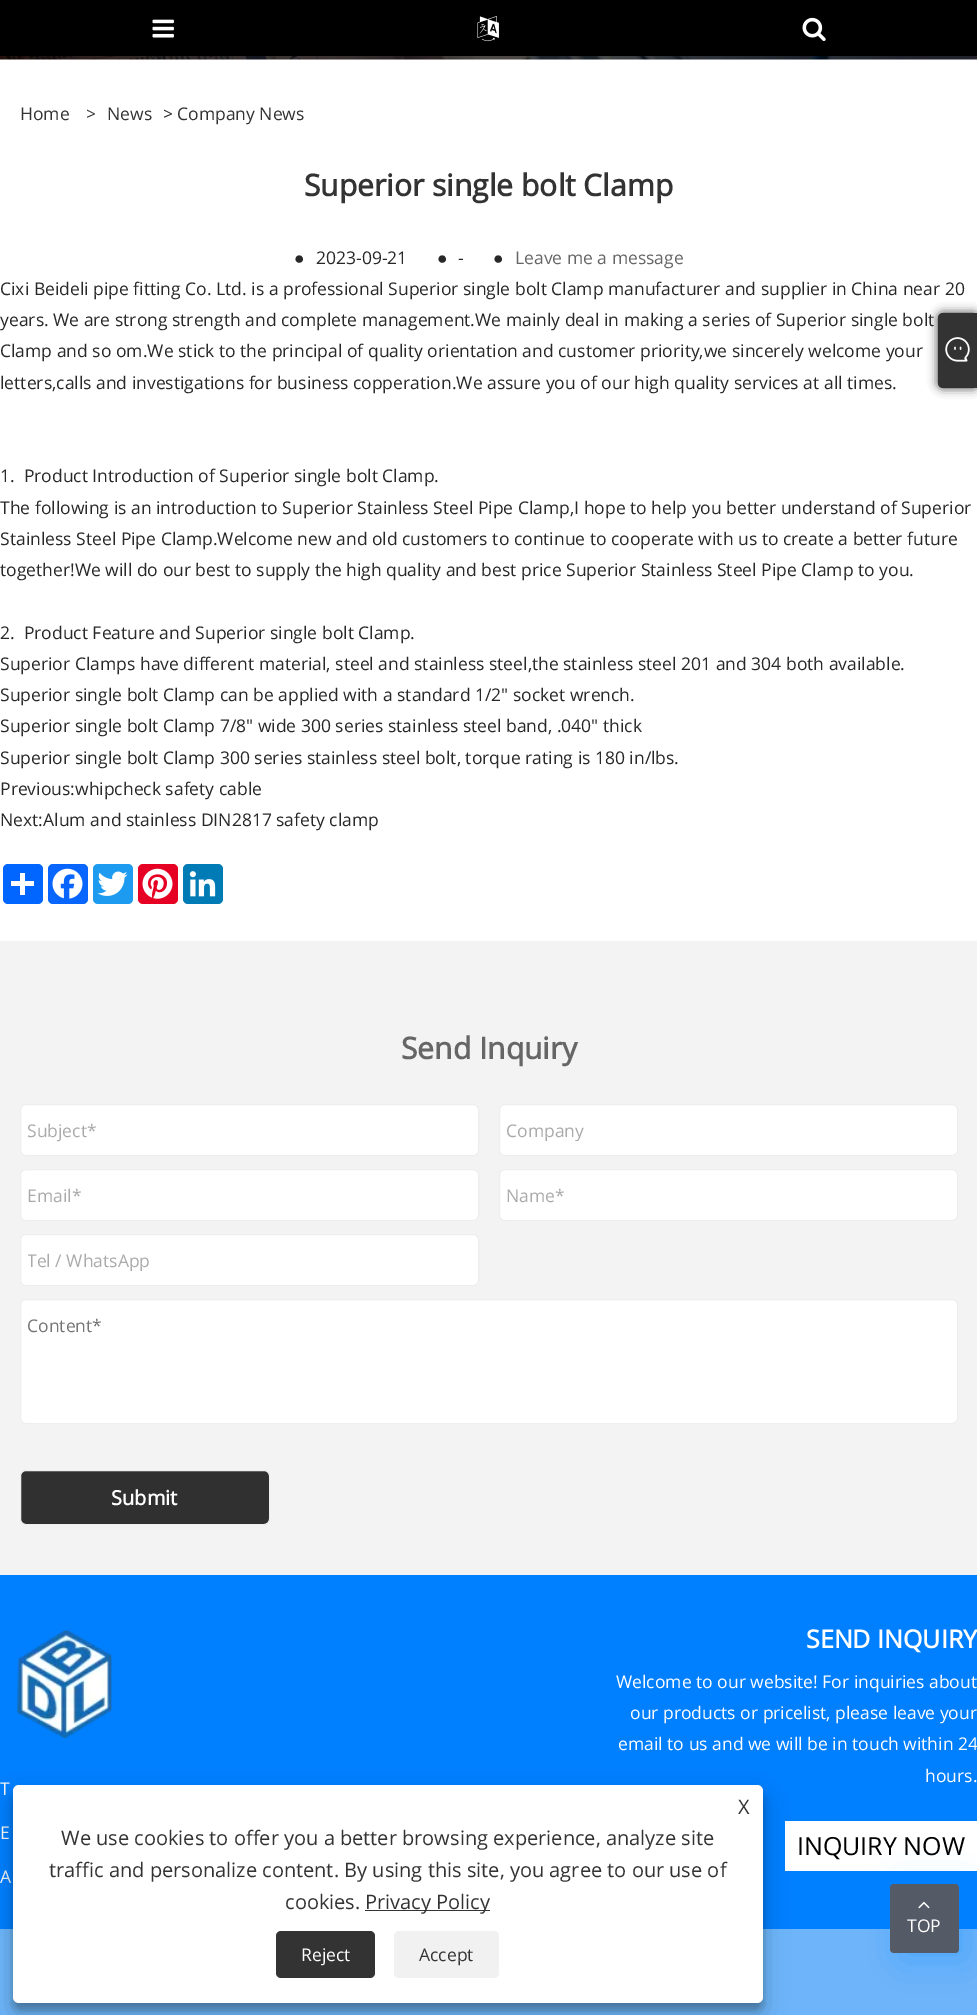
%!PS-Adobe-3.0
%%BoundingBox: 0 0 977 2015
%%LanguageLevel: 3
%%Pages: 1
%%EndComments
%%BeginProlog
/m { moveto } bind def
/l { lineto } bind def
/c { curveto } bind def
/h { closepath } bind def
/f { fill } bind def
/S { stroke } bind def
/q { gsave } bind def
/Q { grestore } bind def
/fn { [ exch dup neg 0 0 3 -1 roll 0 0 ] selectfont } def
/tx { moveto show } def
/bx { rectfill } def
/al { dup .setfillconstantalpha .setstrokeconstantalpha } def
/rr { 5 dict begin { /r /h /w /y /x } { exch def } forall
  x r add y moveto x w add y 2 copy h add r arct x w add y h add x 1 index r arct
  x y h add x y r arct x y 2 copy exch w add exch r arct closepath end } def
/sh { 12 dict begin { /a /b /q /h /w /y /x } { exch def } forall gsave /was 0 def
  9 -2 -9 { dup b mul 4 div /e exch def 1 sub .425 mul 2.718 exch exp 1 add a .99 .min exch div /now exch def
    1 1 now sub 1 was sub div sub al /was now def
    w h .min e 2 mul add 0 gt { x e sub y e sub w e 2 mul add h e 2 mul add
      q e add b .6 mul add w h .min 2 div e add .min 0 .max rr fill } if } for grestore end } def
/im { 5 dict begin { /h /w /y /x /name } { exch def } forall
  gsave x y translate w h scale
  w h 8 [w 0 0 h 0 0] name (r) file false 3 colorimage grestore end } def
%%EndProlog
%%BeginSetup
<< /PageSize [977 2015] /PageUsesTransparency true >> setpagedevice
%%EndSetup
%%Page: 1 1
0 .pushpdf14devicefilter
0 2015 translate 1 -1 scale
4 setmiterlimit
1 setgray
0 0 977 2015 bx
0 setgray
0 0 977 56 bx
(image0.raw) 152 19 22 19 im
(image1.raw) 477 16 22 26 im
(image2.raw) 802 17 24 24 im
(image3.raw) 0 56 977 4 im
/OpenSans-Regular 17.5 fn
0.2 setgray
(Home) 20 120 tx
(>) 86 120 tx
(News) 107 120 tx
0.157 setgray
(>) 163 120 tx
0.2 setgray
(Company News) 177 120 tx
/OpenSans-Bold 30 fn
(Superior single bolt Clamp) 304 196 tx
/LiberationSans-Regular 17.5 fn
0.157 setgray
(●) 294 264 tx
/OpenSans-Regular 17.5 fn
(2023-09-21) 316 264 tx
/LiberationSans-Regular 17.5 fn
(●) 437 264 tx
/OpenSans-Regular 17.5 fn
(-) 458 264 tx
/LiberationSans-Regular 17.5 fn
(●) 493 264 tx
/OpenSans-Regular 17.5 fn
0.4 setgray
(Leave me a message) 515 264 tx
0.157 setgray
(Cixi Beideli pipe fitting Co. Ltd. is a professional Superior single bolt Clamp manufacturer and supplier in China near 20) 0 295 tx
(years. We are strong strength and complete management.We mainly deal in making a series of Superior single bolt) 0 326 tx
(Clamp and so om.We stick to the principal of quality orientation and customer priority,we sincerely welcome your) 0 357 tx
(letters,calls and investigations for business copperation.We assure you of our high quality services at all times.) 0 389 tx
(1.  Product Introduction of Superior single bolt Clamp.) 0 482 tx
(The following is an introduction to Superior Stainless Steel Pipe Clamp,I hope to help you better understand of Superior) 0 514 tx
(Stainless Steel Pipe Clamp.Welcome new and old customers to continue to cooperate with us to create a better future) 0 545 tx
(together!We will do our best to supply the high quality and best price Superior Stainless Steel Pipe Clamp to you.) 0 576 tx
(2.  Product Feature and Superior single bolt Clamp.) 0 639 tx
(Superior Clamps have different material, steel and stainless steel,the stainless steel 201 and 304 both available.) 0 670 tx
(Superior single bolt Clamp can be applied with a standard 1/2" socket wrench.) 0 701 tx
(Superior single bolt Clamp 7/8" wide 300 series stainless steel band, .040" thick) 0 732 tx
(Superior single bolt Clamp 300 series stainless steel bolt, torque rating is 180 in/lbs.) 0 764 tx
(Previous:whipcheck safety cable) 0 795 tx
(Next:Alum and stainless DIN2817 safety clamp) 0 826 tx
0.004 0.4 1 setrgbcolor
3 864 40 40 5 rr f
1 setgray
20 873 5 22 bx
11 881 23 5 bx
0.031 0.4 1 setrgbcolor
48 864 40 40 5 rr f
(image4.raw) 52 868 31 31 im
0.114 0.608 0.941 setrgbcolor
93 864 40 40 5 rr f
(image5.raw) 97 871 31 25 im
0.902 0 0.137 setrgbcolor
138 864 40 40 5 rr f
(image6.raw) 142 868 31 31 im
0 0.482 0.71 setrgbcolor
183 864 40 40 5 rr f
(image7.raw) 189 871 27 26 im
0.2 setgray
938 313 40 75 5 5 1 sh
943 313 m 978 313 l 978 388 l 943 388 l 940 388 938 386 938 383 c 938 318 l 938 315 940 313 943 313 c h f
(image8.raw) 945 337 25 25 im
0.953 setgray
0 941 977 634 bx
/OpenSans-Bold 30 fn
0.4 setgray
(Send Inquiry) 401 1059 tx
1 setgray
20.5 1104.5 458 51 5.5 rr q f Q
0.933 setgray
S
/OpenSans-Regular 17.5 fn
0.667 setgray
(Subject*) 27 1137 tx
1 setgray
499.5 1104.5 458 51 5.5 rr q f Q
0.933 setgray
S
q
506 1118 444 23 rectclip
0.667 setgray
(Company) 506 1137 tx
Q
1 setgray
20.5 1169.5 458 51 5.5 rr q f Q
0.933 setgray
S
0.667 setgray
(Email*) 27 1202 tx
1 setgray
499.5 1169.5 458 51 5.5 rr q f Q
0.933 setgray
S
0.667 setgray
(Name*) 506 1202 tx
1 setgray
20.5 1234.5 458 51 5.5 rr q f Q
0.933 setgray
S
q
28 1248 443 23 rectclip
0.667 setgray
(Tel / WhatsApp) 27 1267 tx
Q
1 setgray
20.5 1299.5 937 124 5.5 rr q f Q
0.933 setgray
S
0.459 setgray
(Content*) 27 1332 tx
0.188 setgray
20.5 1470.5 249 54 5.5 rr q f Q
0.933 setgray
S
/OpenSans-Bold 20 fn
1 setgray
(Submit) 111 1505 tx
0 0.498 1 setrgbcolor
0 1575 977 354 bx
(image9.raw) 17 1630 95 109 im
/OpenSans-Regular 17.5 fn
0.965 setgray
(T) 0 1795 tx
(E) 0 1839 tx
(A) 0 1883 tx
/OpenSans-Bold 25 fn
1 setgray
(SEND INQUIRY) 806 1648 tx
/OpenSans-Regular 17.5 fn
(Welcome to our website! For inquiries about) 616 1688 tx
(our products or pricelist, please leave your) 630 1719 tx
(email to us and we will be in touch within 24) 618 1750 tx
(hours.) 925 1782 tx
785 1821 192 50 bx
/OpenSans-Regular 25 fn
0 setgray
(INQUIRY NOW) 797 1855 tx
0.431 0.706 0.98 setrgbcolor
0 1929 977 86 bx
0 setgray
13 1793 750 217 6 4 0.23 sh
13 1798 750 217 6 12.5 0.19 sh
1 setgray
13 1785 750 218 6 rr f
/OpenSans-Regular 20 fn
0.2 setgray
(X) 738 1814 tx
(We use cookies to offer you a better browsing experience, analyze site) 61 1845 tx
(traffic and personalize content. By using this site, you agree to our use of) 49 1877 tx
(cookies.) 285 1909 tx
365 1910 125 1 bx
(Privacy Policy) 365 1909 tx
276 1931 99 47 5 rr f
/OpenSans-Regular 17.5 fn
1 setgray
(Reject) 301 1961 tx
0.945 setgray
394 1931 105 47 5 rr f
0.2 setgray
(Accept) 419 1961 tx
0 0.498 1 setrgbcolor
899 1893 69 68 4 19 0.3 sh
0.329 0.353 0.4 setrgbcolor
890 1884 69 69 4 rr f
(image10.raw) 918 1901 12 8 im
1 setgray
(TOP) 907 1932 tx
.poppdf14devicefilter showpage
%%EOF
